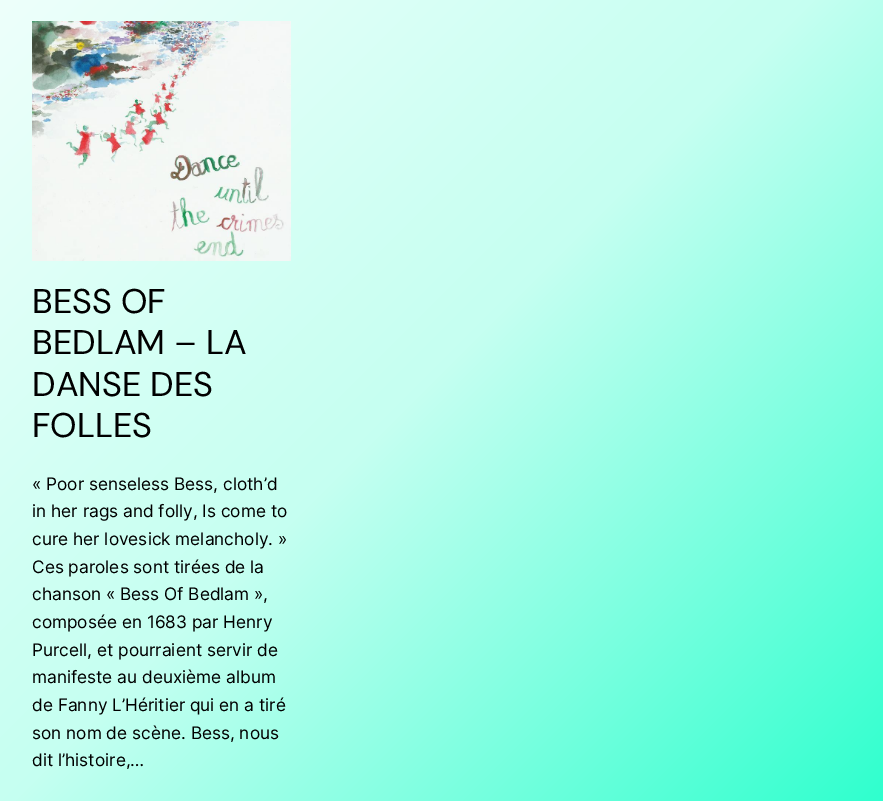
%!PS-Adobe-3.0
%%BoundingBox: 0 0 883 801
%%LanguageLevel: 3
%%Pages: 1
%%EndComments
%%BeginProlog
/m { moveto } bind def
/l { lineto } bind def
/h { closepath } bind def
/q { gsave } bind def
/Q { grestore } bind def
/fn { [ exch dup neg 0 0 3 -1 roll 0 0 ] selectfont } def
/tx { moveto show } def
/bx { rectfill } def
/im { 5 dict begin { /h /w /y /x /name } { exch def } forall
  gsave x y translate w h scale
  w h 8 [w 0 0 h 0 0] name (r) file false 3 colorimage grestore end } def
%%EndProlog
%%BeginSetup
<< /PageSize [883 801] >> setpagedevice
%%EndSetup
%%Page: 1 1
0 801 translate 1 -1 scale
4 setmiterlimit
1 setgray
0 0 883 801 bx
q 0 0 m 883 0 l 883 801 l 0 801 l h clip newpath
<< /ShadingType 2 /ColorSpace /DeviceRGB /Coords [-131 -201 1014 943] /Extend [true true] /Function << /FunctionType 3 /Domain [0 1] /Functions [<< /FunctionType 2 /Domain [0 1] /C0 [1 1 1] /C1 [0.773 1 0.945] /N 1 >> << /FunctionType 2 /Domain [0 1] /C0 [0.773 1 0.945] /C1 [0 1 0.765] /N 1 >>] /Bounds [0.5] /Encode [0 1 0 1] >> >> shfill Q
(image0.raw) 32 21 259 240 im
/DMSans-Regular 34.25 fn
0 setgray
(BESS OF) 32 313 tx
(BEDLAM – LA) 32 354 tx
(DANSE DES) 32 396 tx
(FOLLES) 32 437 tx
/Inter-Regular 17.25 fn
(« Poor senseless Bess, cloth’d) 32 490 tx
(in her rags and folly, Is come to) 32 517 tx
(cure her lovesick melancholy. ») 32 545 tx
(Ces paroles sont tirées de la) 32 573 tx
(chanson « Bess Of Bedlam »,) 32 600 tx
(composée en 1683 par Henry) 32 628 tx
(Purcell, et pourraient servir de) 32 656 tx
(manifeste au deuxième album) 32 683 tx
(de Fanny L’Héritier qui en a tiré) 32 711 tx
(son nom de scène. Bess, nous) 32 739 tx
(dit l’histoire,…) 32 766 tx
showpage
%%EOF
